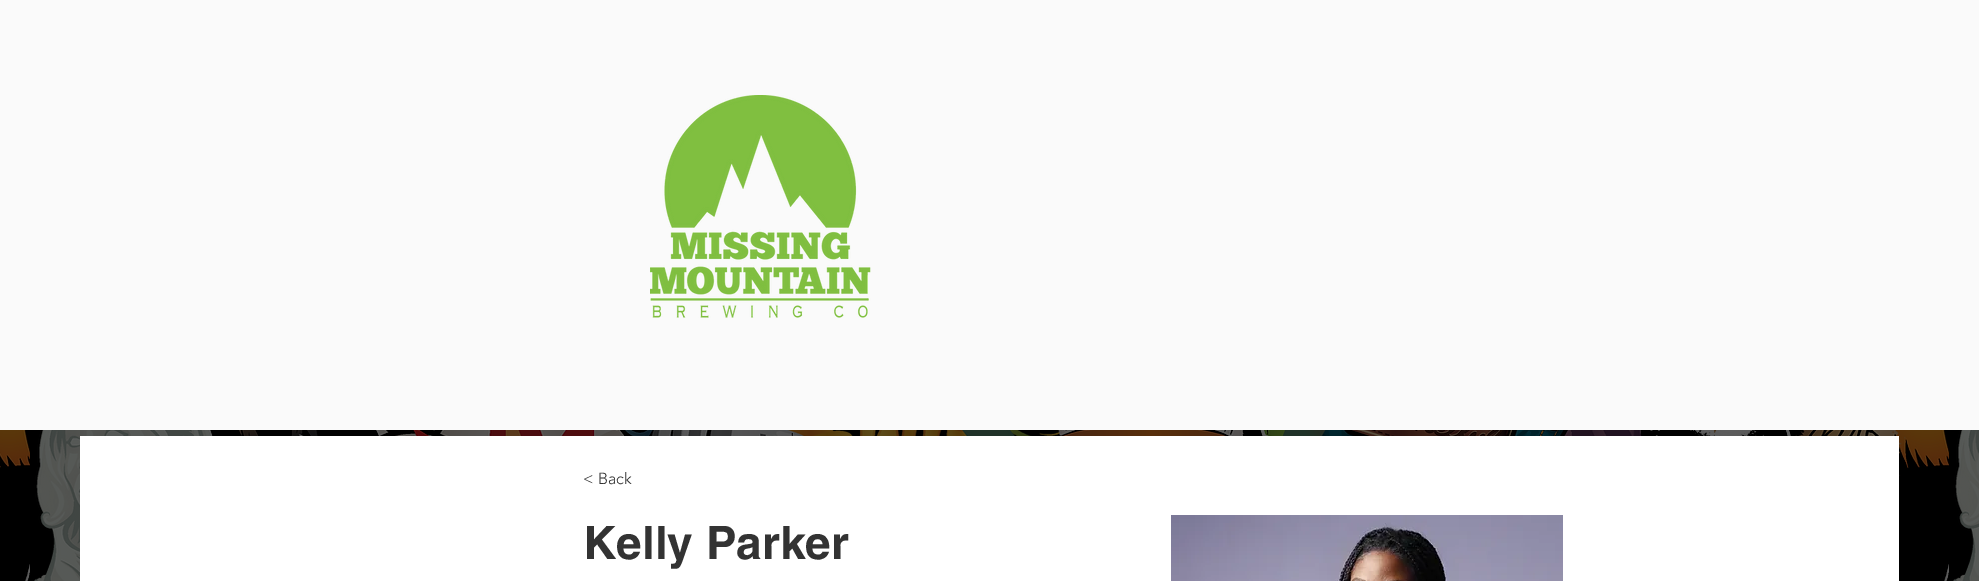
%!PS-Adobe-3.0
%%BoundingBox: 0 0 1979 581
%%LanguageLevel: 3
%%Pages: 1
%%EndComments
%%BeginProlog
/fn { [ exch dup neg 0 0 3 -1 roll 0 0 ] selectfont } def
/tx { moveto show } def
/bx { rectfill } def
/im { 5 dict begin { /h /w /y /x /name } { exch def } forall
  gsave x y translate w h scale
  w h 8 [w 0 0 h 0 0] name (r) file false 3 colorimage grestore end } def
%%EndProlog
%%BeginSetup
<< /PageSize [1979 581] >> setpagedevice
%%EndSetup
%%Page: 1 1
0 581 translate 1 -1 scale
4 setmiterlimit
0 setgray
0 0 1979 581 bx
(image0.raw) 0 430 1979 151 im
0.98 setgray
0 0 1979 430 bx
(image1.raw) 650 95 221 223 im
1 setgray
80 436 1819 145 bx
/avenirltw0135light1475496-Light 16 fn
0.2 setgray
(< Back) 583 484 tx
/helvetica-Bold 46 fn
(Kelly Parker) 583 559 tx
(image2.raw) 1171 515 392 66 im
showpage
%%EOF
